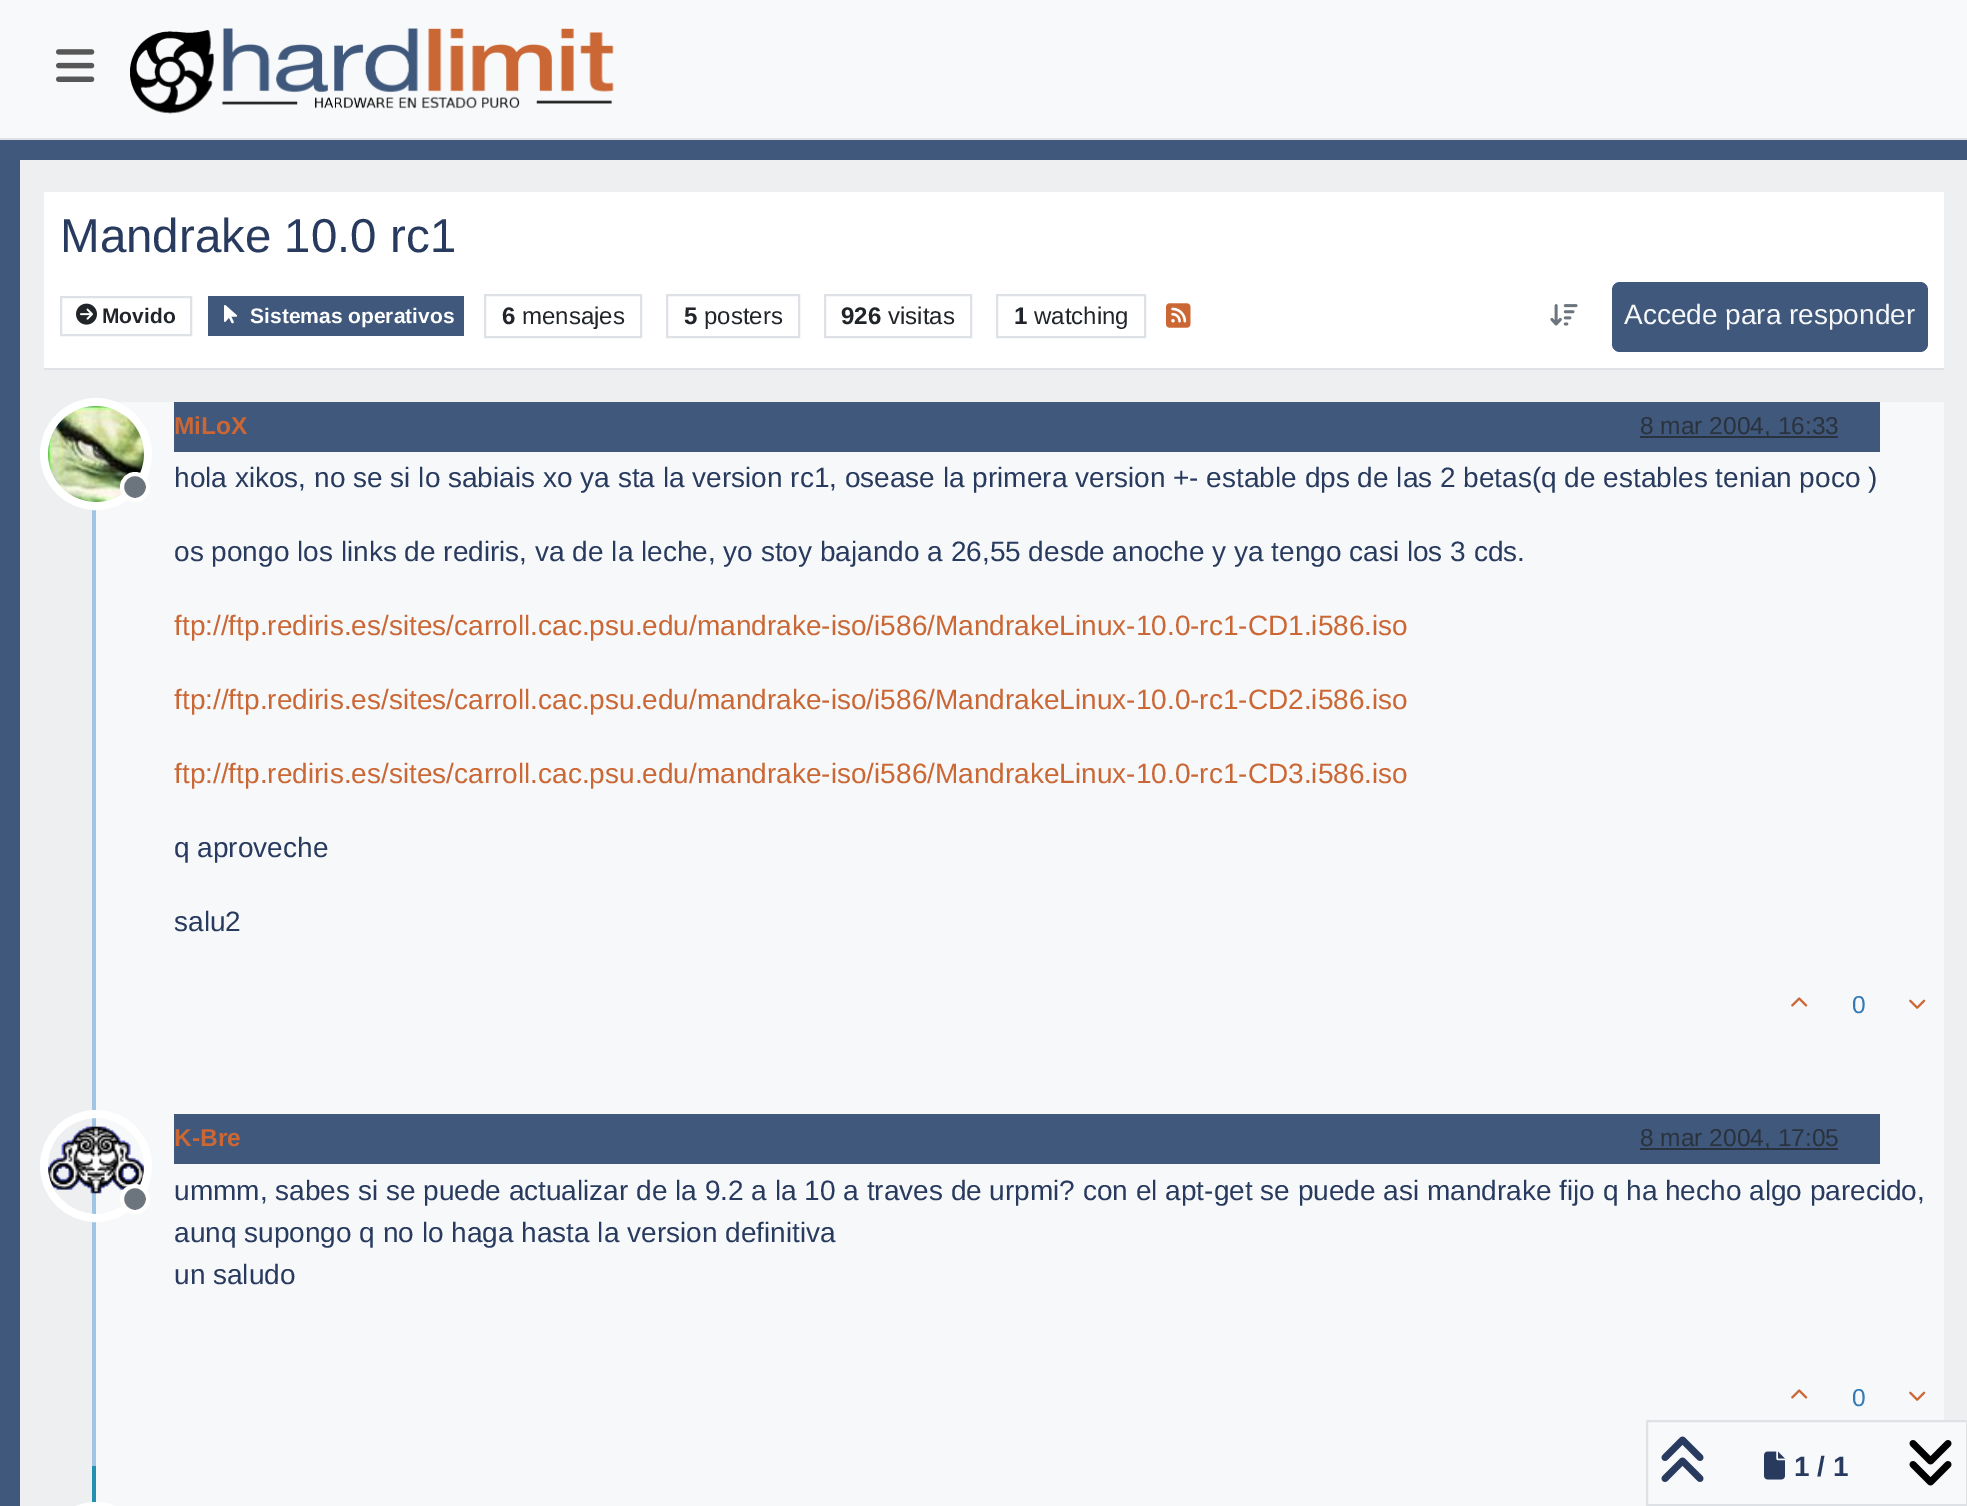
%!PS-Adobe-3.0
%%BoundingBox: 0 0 1967 1506
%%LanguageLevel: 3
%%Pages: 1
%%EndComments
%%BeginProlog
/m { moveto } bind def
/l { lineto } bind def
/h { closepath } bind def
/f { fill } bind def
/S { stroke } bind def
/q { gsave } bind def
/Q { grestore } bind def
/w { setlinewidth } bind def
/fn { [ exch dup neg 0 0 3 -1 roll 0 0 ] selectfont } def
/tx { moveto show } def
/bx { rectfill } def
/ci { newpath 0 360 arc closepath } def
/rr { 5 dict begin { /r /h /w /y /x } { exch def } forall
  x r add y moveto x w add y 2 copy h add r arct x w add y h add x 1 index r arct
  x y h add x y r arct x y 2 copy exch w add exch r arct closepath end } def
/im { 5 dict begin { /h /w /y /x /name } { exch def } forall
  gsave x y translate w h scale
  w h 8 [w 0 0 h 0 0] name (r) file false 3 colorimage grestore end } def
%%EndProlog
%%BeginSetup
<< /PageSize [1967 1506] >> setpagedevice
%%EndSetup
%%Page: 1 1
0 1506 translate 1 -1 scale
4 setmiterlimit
0.251 0.345 0.482 setrgbcolor
0 0 1967 1506 bx
0.973 0.976 0.98 setrgbcolor
0 0 1967 138 bx
0.871 0.886 0.902 setrgbcolor
0 138 1967 2 bx
(image0.raw) 56 49 39 33 im
(image1.raw) 130 28 484 86 im
0.929 0.937 0.945 setrgbcolor
20 160 1947 1346 bx
1 setgray
44 192 1900 176 bx
0.871 0.886 0.902 setrgbcolor
44 368 1900 2 bx
/LiberationSans-Regular 47.5 fn
0.157 0.227 0.369 setrgbcolor
(Mandrake 10.0 rc1) 60 252 tx
0.871 0.886 0.902 setrgbcolor
2 w
61 297 130 38 rectstroke
(image2.raw) 76 303 21 22 im
/LiberationSans-Bold 21 fn
0.129 0.145 0.161 setrgbcolor
(Movido) 102 323 tx
0.251 0.345 0.482 setrgbcolor
208 296 256 40 bx
(image3.raw) 224 305 14 19 im
1 setgray
(Sistemas operativos) 250 323 tx
0.871 0.886 0.902 setrgbcolor
485 295 156 42 rectstroke
/LiberationSans-Bold 24 fn
0.129 0.145 0.161 setrgbcolor
(6) 502 324 tx
/LiberationSans-Regular 24 fn
(mensajes) 522 324 tx
0.871 0.886 0.902 setrgbcolor
667 295 132 42 rectstroke
/LiberationSans-Bold 24 fn
0.129 0.145 0.161 setrgbcolor
(5) 684 324 tx
/LiberationSans-Regular 24 fn
(posters) 704 324 tx
0.871 0.886 0.902 setrgbcolor
825 295 146 42 rectstroke
/LiberationSans-Bold 24 fn
0.129 0.145 0.161 setrgbcolor
(926) 841 324 tx
/LiberationSans-Regular 24 fn
(visitas) 888 324 tx
0.871 0.886 0.902 setrgbcolor
997 295 148 42 rectstroke
/LiberationSans-Bold 24 fn
0.129 0.145 0.161 setrgbcolor
(1) 1014 324 tx
/LiberationSans-Regular 24 fn
(watching) 1034 324 tx
(image4.raw) 1166 303 25 25 im
(image5.raw) 1550 304 28 22 im
0.251 0.345 0.482 setrgbcolor
1612 282 316 70 8 rr f
/LiberationSans-Regular 28 fn
0.965 0.973 0.98 setrgbcolor
(Accede para responder) 1624 324 tx
96 402 1848 1064 bx
0.627 0.769 0.894 setrgbcolor
92 402 4 1064 bx
1 setgray
8 w
96 454 52 ci S
(image6.raw) 48 406 96 96 im
0.424 0.459 0.49 setrgbcolor
135 487 13 ci q f Q
1 setgray
4 w
S
0.251 0.345 0.482 setrgbcolor
174 402 1706 50 bx
/LiberationSans-Bold 24.5 fn
0.796 0.404 0.208 setrgbcolor
(MiLoX) 174 434 tx
0.161 0.196 0.243 setrgbcolor
1640 436 198 2 bx
/LiberationSans-Regular 24.5 fn
0.161 0.196 0.239 setrgbcolor
(8 mar 2004, 16:33) 1640 434 tx
/LiberationSans-Regular 28 fn
0.157 0.227 0.369 setrgbcolor
(hola xikos, no se si lo sabiais xo ya sta la version rc1, osease la primera version +- estable dps de las 2 betas\(q de estables tenian poco \)) 174 487 tx
(os pongo los links de rediris, va de la leche, yo stoy bajando a 26,55 desde anoche y ya tengo casi los 3 cds.) 174 561 tx
0.796 0.404 0.208 setrgbcolor
(ftp://ftp.rediris.es/sites/carroll.cac.psu.edu/mandrake-iso/i586/MandrakeLinux-10.0-rc1-CD1.i586.iso) 174 635 tx
(ftp://ftp.rediris.es/sites/carroll.cac.psu.edu/mandrake-iso/i586/MandrakeLinux-10.0-rc1-CD2.i586.iso) 174 709 tx
(ftp://ftp.rediris.es/sites/carroll.cac.psu.edu/mandrake-iso/i586/MandrakeLinux-10.0-rc1-CD3.i586.iso) 174 783 tx
0.157 0.227 0.369 setrgbcolor
(q aproveche) 174 857 tx
(salu2) 174 931 tx
(image7.raw) 1791 997 17 10 im
/LiberationSans-Regular 24.5 fn
0.2 0.478 0.718 setrgbcolor
(0) 1852 1013 tx
(image8.raw) 1909 999 17 10 im
1 setgray
8 w
96 1166 52 ci S
(image9.raw) 48 1126 96 68 im
0.424 0.459 0.49 setrgbcolor
135 1199 13 ci q f Q
1 setgray
4 w
S
0.251 0.345 0.482 setrgbcolor
174 1114 1706 50 bx
/LiberationSans-Bold 24.5 fn
0.796 0.404 0.208 setrgbcolor
(K-Bre) 174 1146 tx
0.161 0.196 0.243 setrgbcolor
1640 1148 198 2 bx
/LiberationSans-Regular 24.5 fn
0.161 0.196 0.239 setrgbcolor
(8 mar 2004, 17:05) 1640 1146 tx
/LiberationSans-Regular 28 fn
0.157 0.227 0.369 setrgbcolor
(ummm, sabes si se puede actualizar de la 9.2 a la 10 a traves de urpmi? con el apt-get se puede asi mandrake fijo q ha hecho algo parecido,) 174 1200 tx
(aunq supongo q no lo haga hasta la version definitiva) 174 1242 tx
(un saludo) 174 1284 tx
(image7.raw) 1791 1389 17 10 im
/LiberationSans-Regular 24.5 fn
0.2 0.478 0.718 setrgbcolor
(0) 1852 1406 tx
(image8.raw) 1909 1391 17 10 im
0.965 0.973 0.98 setrgbcolor
96 1466 1550 40 bx
0.137 0.565 0.69 setrgbcolor
92 1466 4 40 bx
1 setgray
8 w
44 1506 104 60 52 rr S
0.973 0.976 0.98 setrgbcolor
1647 1421 m 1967 1421 l 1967 1505 l 1647 1505 l h q f Q
0.871 0.886 0.902 setrgbcolor
2 w
S
(image10.raw) 1661 1436 43 46 im
(image11.raw) 1764 1451 21 29 im
/LiberationSans-Bold 28 fn
0.157 0.227 0.369 setrgbcolor
(1 / 1) 1794 1476 tx
(image12.raw) 1909 1440 43 46 im
showpage
%%EOF
